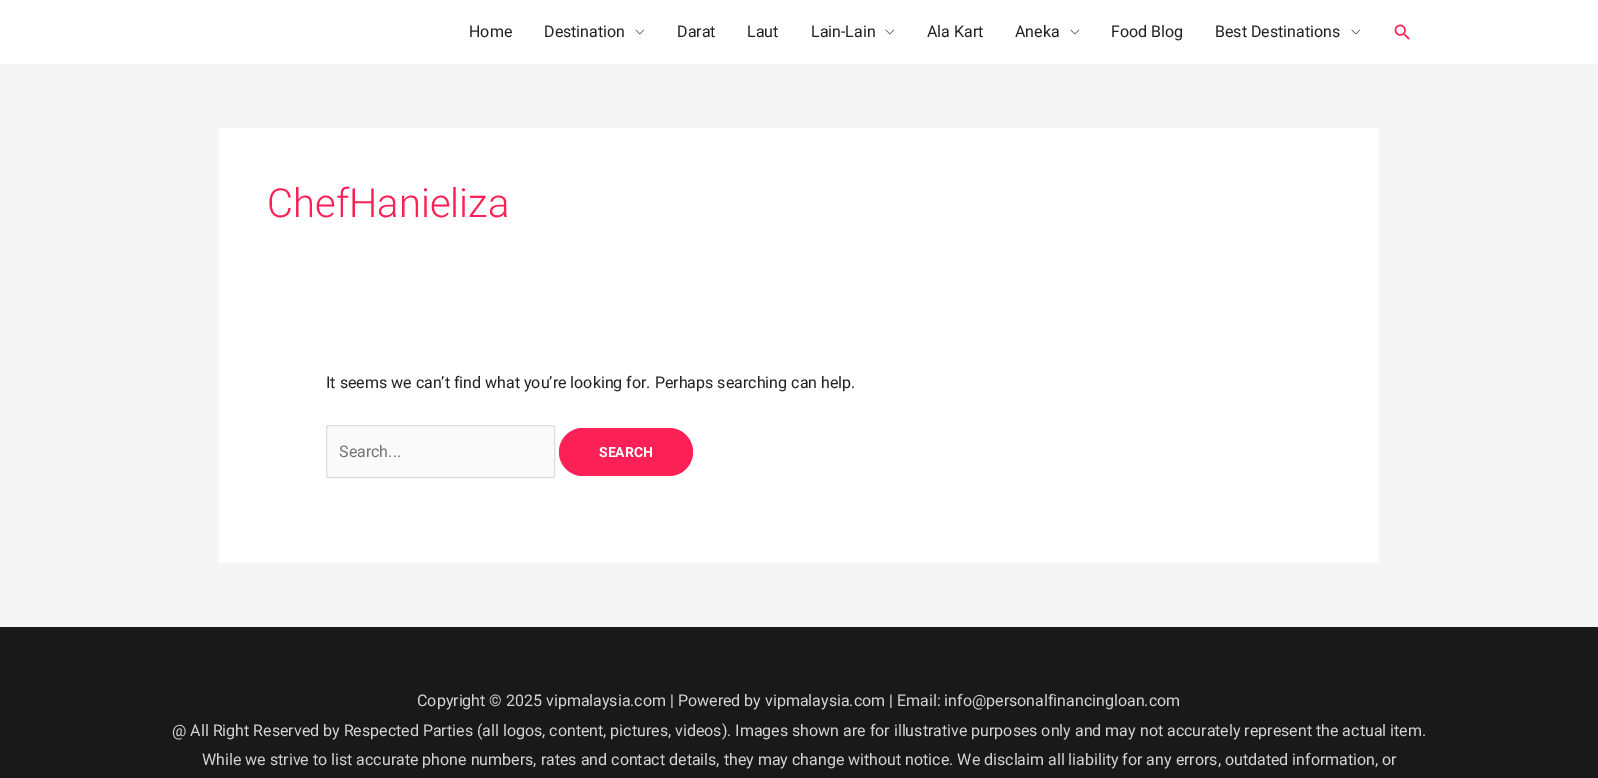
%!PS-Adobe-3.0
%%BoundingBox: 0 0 1598 778
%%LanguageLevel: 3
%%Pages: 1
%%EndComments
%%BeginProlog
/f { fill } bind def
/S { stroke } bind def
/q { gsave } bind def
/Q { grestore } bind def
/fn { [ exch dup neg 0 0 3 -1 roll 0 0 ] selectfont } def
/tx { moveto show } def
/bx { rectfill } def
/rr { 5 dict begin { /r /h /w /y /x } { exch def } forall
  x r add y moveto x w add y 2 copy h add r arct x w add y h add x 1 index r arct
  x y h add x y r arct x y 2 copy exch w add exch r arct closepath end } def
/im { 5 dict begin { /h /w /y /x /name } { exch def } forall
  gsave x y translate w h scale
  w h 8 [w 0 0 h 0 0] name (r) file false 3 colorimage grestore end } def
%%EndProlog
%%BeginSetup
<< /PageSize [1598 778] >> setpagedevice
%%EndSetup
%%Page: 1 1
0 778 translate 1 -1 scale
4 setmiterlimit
0.961 setgray
0 0 1598 778 bx
1 setgray
0 0 1598 64 bx
/Roboto-Regular 16 fn
0.133 setgray
(Home) 469 37 tx
(Destination) 544 37 tx
(image0.raw) 635 29 9 6 im
(Darat) 677 37 tx
(Laut) 747 37 tx
(Lain-Lain) 811 37 tx
(image0.raw) 885 29 9 6 im
(Ala Kart) 927 37 tx
(Aneka) 1015 37 tx
(image0.raw) 1070 29 9 6 im
(Food Blog) 1111 37 tx
(Best Destinations) 1215 37 tx
(image0.raw) 1351 29 9 6 im
(image1.raw) 1394 24 16 16 im
1 setgray
219 128 1160 435 bx
/Roboto-Light 40 fn
0.984 0.125 0.337 setrgbcolor
(ChefHanieliza) 267 217 tx
/Roboto-Regular 16 fn
0.133 setgray
(It seems we can’t find what you’re looking for. Perhaps searching can help.) 326 388 tx
0.98 setgray
326.5 425.5 228 52 1.5 rr q f Q
0.867 setgray
S
0.459 setgray
(Search...) 339 457 tx
0.984 0.125 0.337 setrgbcolor
559 428 134 48 24 rr f
/Roboto-Bold 14 fn
1 setgray
(SEARCH) 599 457 tx
0.098 setgray
0 627 1598 151 bx
/Roboto-Regular 16 fn
0.827 setgray
(Copyright © 2025 vipmalaysia.com | Powered by vipmalaysia.com | Email: info@personalfinancingloan.com) 417 706 tx
(@ All Right Reserved by Respected Parties \(all logos, content, pictures, videos\). Images shown are for illustrative purposes only and may not accurately represent the actual item.) 172 736 tx
(While we strive to list accurate phone numbers, rates and contact details, they may change without notice. We disclaim all liability for any errors, outdated information, or) 202 765 tx
showpage
%%EOF
